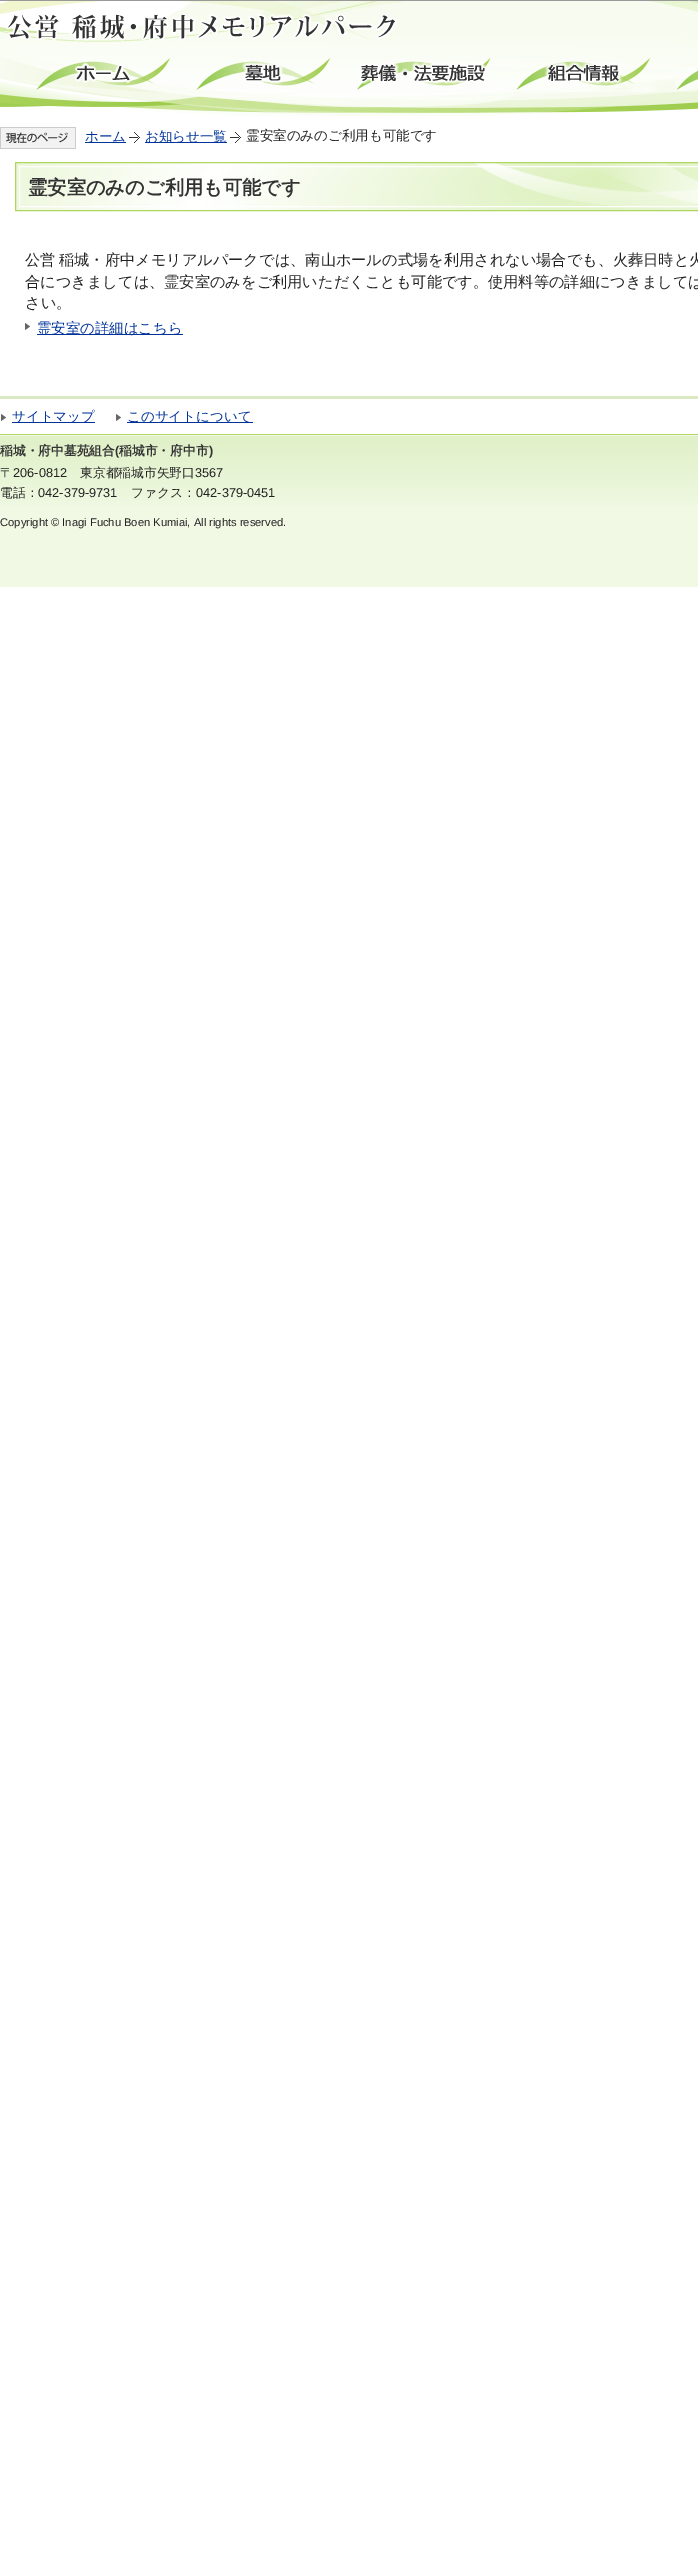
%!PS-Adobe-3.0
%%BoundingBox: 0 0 698 2560
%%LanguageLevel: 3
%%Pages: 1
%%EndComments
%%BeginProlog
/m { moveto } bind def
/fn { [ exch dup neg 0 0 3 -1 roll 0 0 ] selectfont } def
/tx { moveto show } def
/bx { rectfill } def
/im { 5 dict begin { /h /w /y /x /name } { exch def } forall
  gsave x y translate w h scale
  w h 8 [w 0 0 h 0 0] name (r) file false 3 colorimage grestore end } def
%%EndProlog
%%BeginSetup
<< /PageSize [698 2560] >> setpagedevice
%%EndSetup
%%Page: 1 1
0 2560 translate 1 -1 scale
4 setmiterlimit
1 setgray
0 0 698 2560 bx
0.6 setgray
0 0 698 1 bx
(image0.raw) 0 32 698 84 im
(image1.raw) 0 1 698 115 im
(image2.raw) 6 13 391 28 im
(image3.raw) 36 58 134 32 im
(image4.raw) 196 58 134 32 im
(image5.raw) 357 58 134 32 im
(image6.raw) 516 58 139 34 im
(image7.raw) 675 67 23 25 im
(image8.raw) 0 127 76 22 im
(image9.raw) 129 132 11 11 im
0 0.2 0.6 setrgbcolor
85 142 41 1 bx
/WenQuanYiZenHei-Medium 13.5 fn
(ホーム) 85 141 tx
(image9.raw) 230 132 11 11 im
145 142 82 1 bx
(お知らせ一覧) 145 141 tx
0.133 setgray
(霊安室のみのご利用も可能です) 246 140 tx
(image10.raw) 16 163 682 47 im
0.686 0.839 0.376 setrgbcolor
15.5 162.5 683 48 rectstroke
1 setgray
19.5 166.5 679 40 rectstroke
/WenQuanYiZenHei-Bold 19.25 fn
0.2 setgray
(霊安室のみのご利用も可能です) 28 194 tx
/WenQuanYiZenHei-Medium 15.2 fn
0.133 setgray
25 265 m -1 0 32 (公営 稲城・府中メモリアルパークでは、南山ホールの式場を利用されない場合でも、火葬日時と火) widthshow
(合につきましては、霊安室のみをご利用いただくことも可能です。使用料等の詳細につきましては) 25 287 tx
(さい。) 25 308 tx
(image11.raw) 25 323 5 7 im
0 0.2 0.6 setrgbcolor
37 334 146 1 bx
/WenQuanYiZenHei-Medium 14.4 fn
(霊安室の詳細はこちら) 37 333 tx
0.855 0.914 0.761 setrgbcolor
0 396 698 3 bx
(image11.raw) 1 414 5 7 im
0 0.2 0.6 setrgbcolor
12 422 83 1 bx
/WenQuanYiZenHei-Medium 13.5 fn
(サイトマップ) 12 421 tx
(image11.raw) 116 414 5 7 im
127 422 126 1 bx
(このサイトについて) 127 421 tx
0.945 0.976 0.898 setrgbcolor
0 435 698 152 bx
(image12.raw) 0 434 698 71 im
/WenQuanYiZenHei-Bold 12.75 fn
0.2 setgray
(稲城・府中墓苑組合) 0 455 tx
/LiberationSans-Bold 12.75 fn
(\() 115 455 tx
/WenQuanYiZenHei-Bold 12.75 fn
(稲城市・府中市) 119 455 tx
/LiberationSans-Bold 12.75 fn
(\)) 209 455 tx
/WenQuanYiZenHei-Medium 12.75 fn
0.133 setgray
(〒) 0 477 tx
/LiberationSans-Regular 12.75 fn
(206-0812) 13 477 tx
/WenQuanYiZenHei-Medium 12.75 fn
(東京都稲城市矢野口) 80 477 tx
/LiberationSans-Regular 12.75 fn
(3567) 195 477 tx
/WenQuanYiZenHei-Medium 12.75 fn
(電話：) 0 497 tx
/LiberationSans-Regular 12.75 fn
(042-379-9731) 38 497 tx
/WenQuanYiZenHei-Medium 12.75 fn
(ファクス：) 131 497 tx
/LiberationSans-Regular 12.75 fn
(042-379-0451) 196 497 tx
/LiberationSans-Regular 11.2 fn
(Copyright © Inagi Fuchu Boen Kumiai, All rights reserved.) 0 526 tx
showpage
%%EOF
